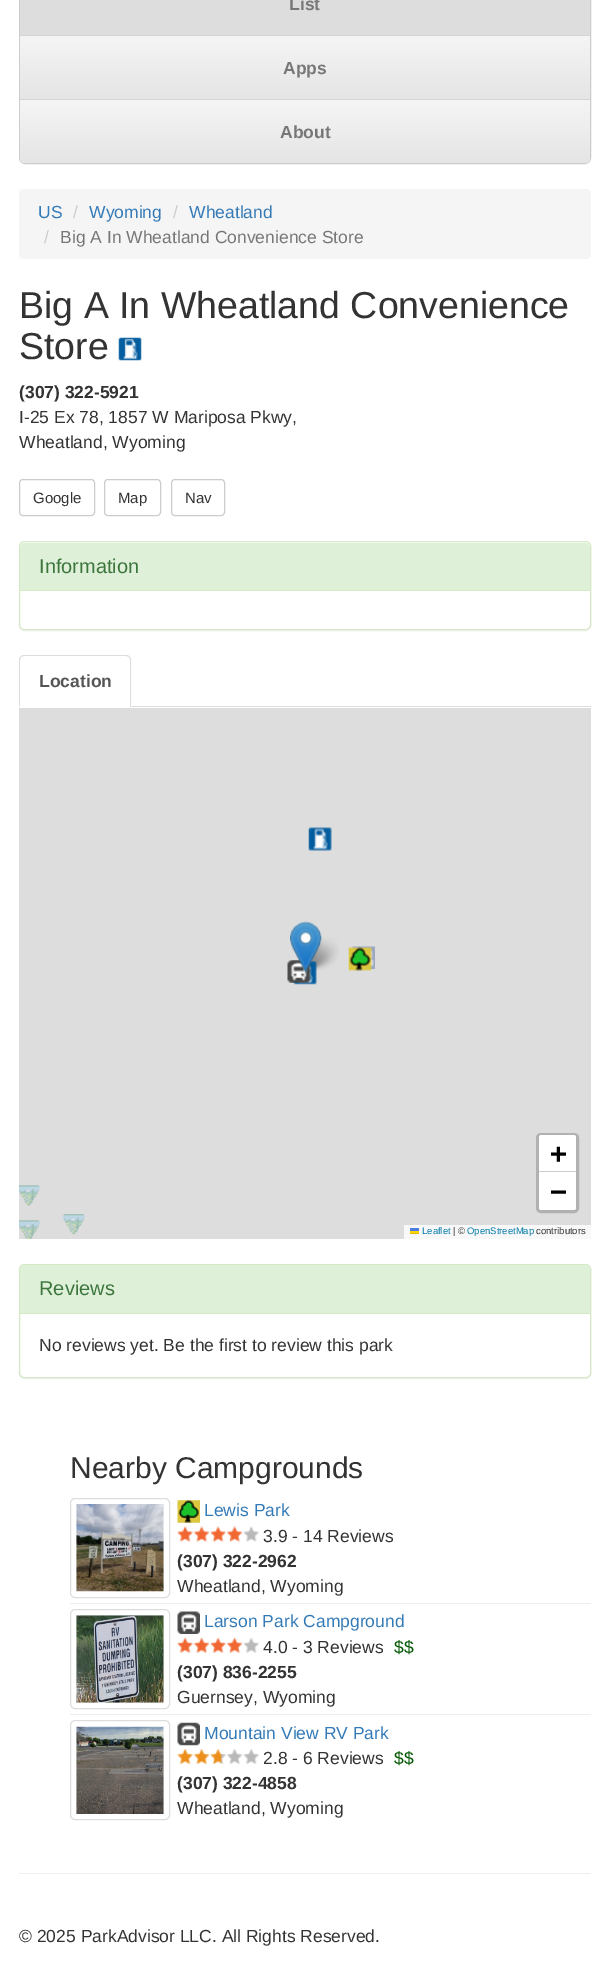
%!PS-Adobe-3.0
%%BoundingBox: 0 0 610 1988
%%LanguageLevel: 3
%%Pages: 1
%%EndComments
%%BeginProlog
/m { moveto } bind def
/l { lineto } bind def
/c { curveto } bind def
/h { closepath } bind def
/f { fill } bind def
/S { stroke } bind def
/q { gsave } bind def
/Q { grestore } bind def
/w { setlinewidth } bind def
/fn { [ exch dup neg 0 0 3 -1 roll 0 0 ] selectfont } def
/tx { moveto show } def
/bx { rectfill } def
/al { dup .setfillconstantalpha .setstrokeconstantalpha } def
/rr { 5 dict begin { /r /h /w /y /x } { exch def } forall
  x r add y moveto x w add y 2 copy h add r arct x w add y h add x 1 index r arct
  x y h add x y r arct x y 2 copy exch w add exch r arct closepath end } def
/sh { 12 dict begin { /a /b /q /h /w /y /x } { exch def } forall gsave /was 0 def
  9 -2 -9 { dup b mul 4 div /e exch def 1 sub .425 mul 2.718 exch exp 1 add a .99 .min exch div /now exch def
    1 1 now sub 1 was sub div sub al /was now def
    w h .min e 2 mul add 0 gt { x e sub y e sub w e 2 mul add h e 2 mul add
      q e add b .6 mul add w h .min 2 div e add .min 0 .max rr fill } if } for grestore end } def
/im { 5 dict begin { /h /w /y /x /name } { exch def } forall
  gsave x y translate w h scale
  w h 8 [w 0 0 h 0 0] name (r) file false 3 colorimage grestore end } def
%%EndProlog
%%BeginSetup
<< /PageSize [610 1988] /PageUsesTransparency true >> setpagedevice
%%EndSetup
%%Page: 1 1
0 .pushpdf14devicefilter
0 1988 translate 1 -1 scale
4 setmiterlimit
1 setgray
0 0 610 1988 bx
0.933 setgray
19.5 -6.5 571 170 5.5 rr q f Q
0.8 setgray
S
0.867 setgray
20 0 570 35 bx
0.835 setgray
20 35 570 1 bx
/LiberationSans-Bold 17.5 fn
0.467 setgray
(List) 289 10 tx
q 20 36 m 590 36 l 590 99 l 20 99 l h clip newpath
<< /ShadingType 2 /ColorSpace /DeviceRGB /Coords [305 36 305 99] /Extend [true true] /Function << /FunctionType 2 /Domain [0 1] /C0 [0.961 0.961 0.961] /C1 [0.898 0.898 0.898] /N 1 >> >> shfill Q
0.835 setgray
20 99 570 1 bx
0.467 setgray
(Apps) 283 74 tx
q 20 100 m 590 100 l 590 157 l 590 160.5 587.5 163 584 163 c 26 163 l 22.5 163 20 160.5 20 157 c h clip newpath
<< /ShadingType 2 /ColorSpace /DeviceRGB /Coords [305 100 305 163] /Extend [true true] /Function << /FunctionType 2 /Domain [0 1] /C0 [0.961 0.961 0.961] /C1 [0.898 0.898 0.898] /N 1 >> >> shfill Q
(About) 280 138 tx
0.961 setgray
19 189 572 70 5 rr f
/LiberationSans-Regular 17.5 fn
0.2 0.478 0.718 setrgbcolor
(US) 38 218 tx
0.8 setgray
(/) 73 218 tx
0.2 0.478 0.718 setrgbcolor
(Wyoming) 89 218 tx
0.8 setgray
(/) 173 218 tx
0.2 0.478 0.718 setrgbcolor
(Wheatland) 189 218 tx
0.8 setgray
(/) 44 243 tx
0.467 setgray
(Big A In Wheatland Convenience Store) 60 243 tx
/LiberationSans-Regular 37.5 fn
0.2 setgray
(Big A In Wheatland Convenience) 19 318 tx
(Store) 19 359 tx
(image0.raw) 118 337 24 24 im
/LiberationSans-Bold 17.5 fn
(\(307\) 322-5921) 19 398 tx
/LiberationSans-Regular 17.5 fn
(I-25 Ex 78, 1857 W Mariposa Pkwy,) 19 423 tx
(Wheatland, Wyoming) 19 448 tx
0.8 setgray
19.5 479.5 75 36 3.5 rr S
/LiberationSans-Regular 15 fn
0.2 setgray
(Google) 33 503 tx
0.8 setgray
104.5 479.5 56 36 3.5 rr S
0.2 setgray
(Map) 118 503 tx
0.8 setgray
171.5 479.5 53 36 3.5 rr S
0.2 setgray
(Nav) 185 503 tx
0 setgray
19 543 572 88 5 0.5 0.05 sh
1 setgray
19.5 541.5 571 88 4.5 rr q f Q
0.839 0.914 0.776 setrgbcolor
S
0.875 0.941 0.847 setrgbcolor
24 543 m 586 543 l 588 543 590 545 590 547 c 590 591 l 20 591 l 20 547 l 20 545 22 543 24 543 c h f
0.839 0.914 0.776 setrgbcolor
20 590 570 1 bx
/LiberationSans-Regular 20 fn
0.235 0.463 0.239 setrgbcolor
(Information) 39 573 tx
0.867 setgray
131 706 460 1 bx
24 655 m 22 655 21 656 20 657 c 21 657 l 24 656 l 126 656 l 129 657 l 130 657 l 129 656 128 655 126 655 c h f
130 657 m 131 657 131 659 131 660 c 131 707 l 130 706 l 130 660 l 130 659 130 658 129 657 c h f
20 657 m 19 657 19 659 19 660 c 19 707 l 20 706 l 20 660 l 20 659 20 658 21 657 c h f
/LiberationSans-Bold 17.5 fn
0.333 setgray
(Location) 39 687 tx
0.867 setgray
19 708 572 531 bx
(image1.raw) 308 827 24 24 im
(image10.raw) 301 937 38 34 im
(image6.raw) 293 961 24 24 im
(image4.raw) 287 960 24 23 im
(image2.raw) 290 921 32 53 im
(image3.raw) 352 946 23 23 im
(image5.raw) 348 947 24 24 im
(image7.raw) 19 1185 21 21 im
(image8.raw) 19 1220 21 19 im
(image9.raw) 62 1214 23 21 im
0.694 setgray
3 w
537.5 1134.5 40 77 3.5 rr S
1 setgray
541.5 1135 m 573.5 1135 l 575 1135 576 1136 576 1137.5 c 576 1173 l 539 1173 l 539 1137.5 l 539 1136 540 1135 541.5 1135 c h f
0.8 setgray
539 1171 37 1 bx
/DejaVuSansMono-Bold 28 fn
0 setgray
(+) 550 1163 tx
1 setgray
539 1173 m 576 1173 l 576 1207.5 l 576 1209 575 1210 573.5 1210 c 541.5 1210 l 540 1210 539 1209 539 1207.5 c h f
0 setgray
(−) 550 1201 tx
0.973 setgray
404 1225 187 14 bx
/LiberationSans-Regular 9.5 fn
0 0.471 0.659 setrgbcolor
(Leaflet) 422 1234 tx
0.298 0.482 0.882 setrgbcolor
410 1228 9 3 bx
1 0.835 0 setrgbcolor
410 1231 9 2 bx
0.878 0.737 0 setrgbcolor
410 1233 9 1 bx
0.2 setgray
(| ©) 453 1234 tx
0 0.471 0.659 setrgbcolor
(OpenStreetMap) 467 1234 tx
0.2 setgray
(contributors) 536 1234 tx
0 setgray
19 1265 572 114 5 0.5 0.05 sh
1 setgray
19.5 1264.5 571 113 4.5 rr q f Q
0.839 0.914 0.776 setrgbcolor
1 w
S
0.875 0.941 0.847 setrgbcolor
24 1265 m 586 1265 l 588 1265 590 1267 590 1269 c 590 1314 l 20 1314 l 20 1269 l 20 1267 22 1265 24 1265 c h f
0.839 0.914 0.776 setrgbcolor
20 1313 570 1 bx
/LiberationSans-Regular 20 fn
0.235 0.463 0.239 setrgbcolor
(Reviews) 39 1295 tx
/LiberationSans-Regular 17.5 fn
0.2 setgray
(No reviews yet. Be the first to review this park) 39 1351 tx
/LiberationSans-Regular 30 fn
(Nearby Campgrounds) 70 1478 tx
0.867 setgray
70.5 1498.5 99 99 4.5 rr S
(image11.raw) 76 1504 88 88 im
(image12.raw) 177 1500 23 23 im
/LiberationSans-Regular 17.5 fn
0.2 0.478 0.718 setrgbcolor
(Lewis Park) 204 1516 tx
(image13.raw) 177 1526 82 16 im
0.2 setgray
(3.9 - 14 Reviews) 263 1542 tx
/LiberationSans-Bold 17.5 fn
(\(307\) 322-2962) 177 1567 tx
/LiberationSans-Regular 17.5 fn
(Wheatland, Wyoming) 177 1592 tx
0.933 setgray
70 1603 521 1 bx
0.867 setgray
70.5 1609.5 99 99 4.5 rr S
(image14.raw) 76 1615 88 88 im
(image15.raw) 177 1611 23 23 im
0.2 0.478 0.718 setrgbcolor
(Larson Park Campground) 204 1627 tx
(image16.raw) 177 1637 82 16 im
0.2 setgray
(4.0 - 3 Reviews) 263 1653 tx
0 0.333 0 setrgbcolor
($$) 394 1653 tx
/LiberationSans-Bold 17.5 fn
0.2 setgray
(\(307\) 836-2255) 177 1678 tx
/LiberationSans-Regular 17.5 fn
(Guernsey, Wyoming) 177 1703 tx
0.933 setgray
70 1714 521 1 bx
0.867 setgray
70.5 1720.5 99 99 4.5 rr S
(image17.raw) 76 1726 88 88 im
(image18.raw) 177 1722 23 24 im
0.2 0.478 0.718 setrgbcolor
(Mountain View RV Park) 204 1739 tx
(image19.raw) 177 1749 82 15 im
0.2 setgray
(2.8 - 6 Reviews) 263 1764 tx
0 0.333 0 setrgbcolor
($$) 394 1764 tx
/LiberationSans-Bold 17.5 fn
0.2 setgray
(\(307\) 322-4858) 177 1789 tx
/LiberationSans-Regular 17.5 fn
(Wheatland, Wyoming) 177 1814 tx
0.933 setgray
19 1873 572 1 bx
0.2 setgray
(© 2025 ParkAdvisor LLC. All Rights Reserved.) 19 1942 tx
.poppdf14devicefilter showpage
%%EOF
